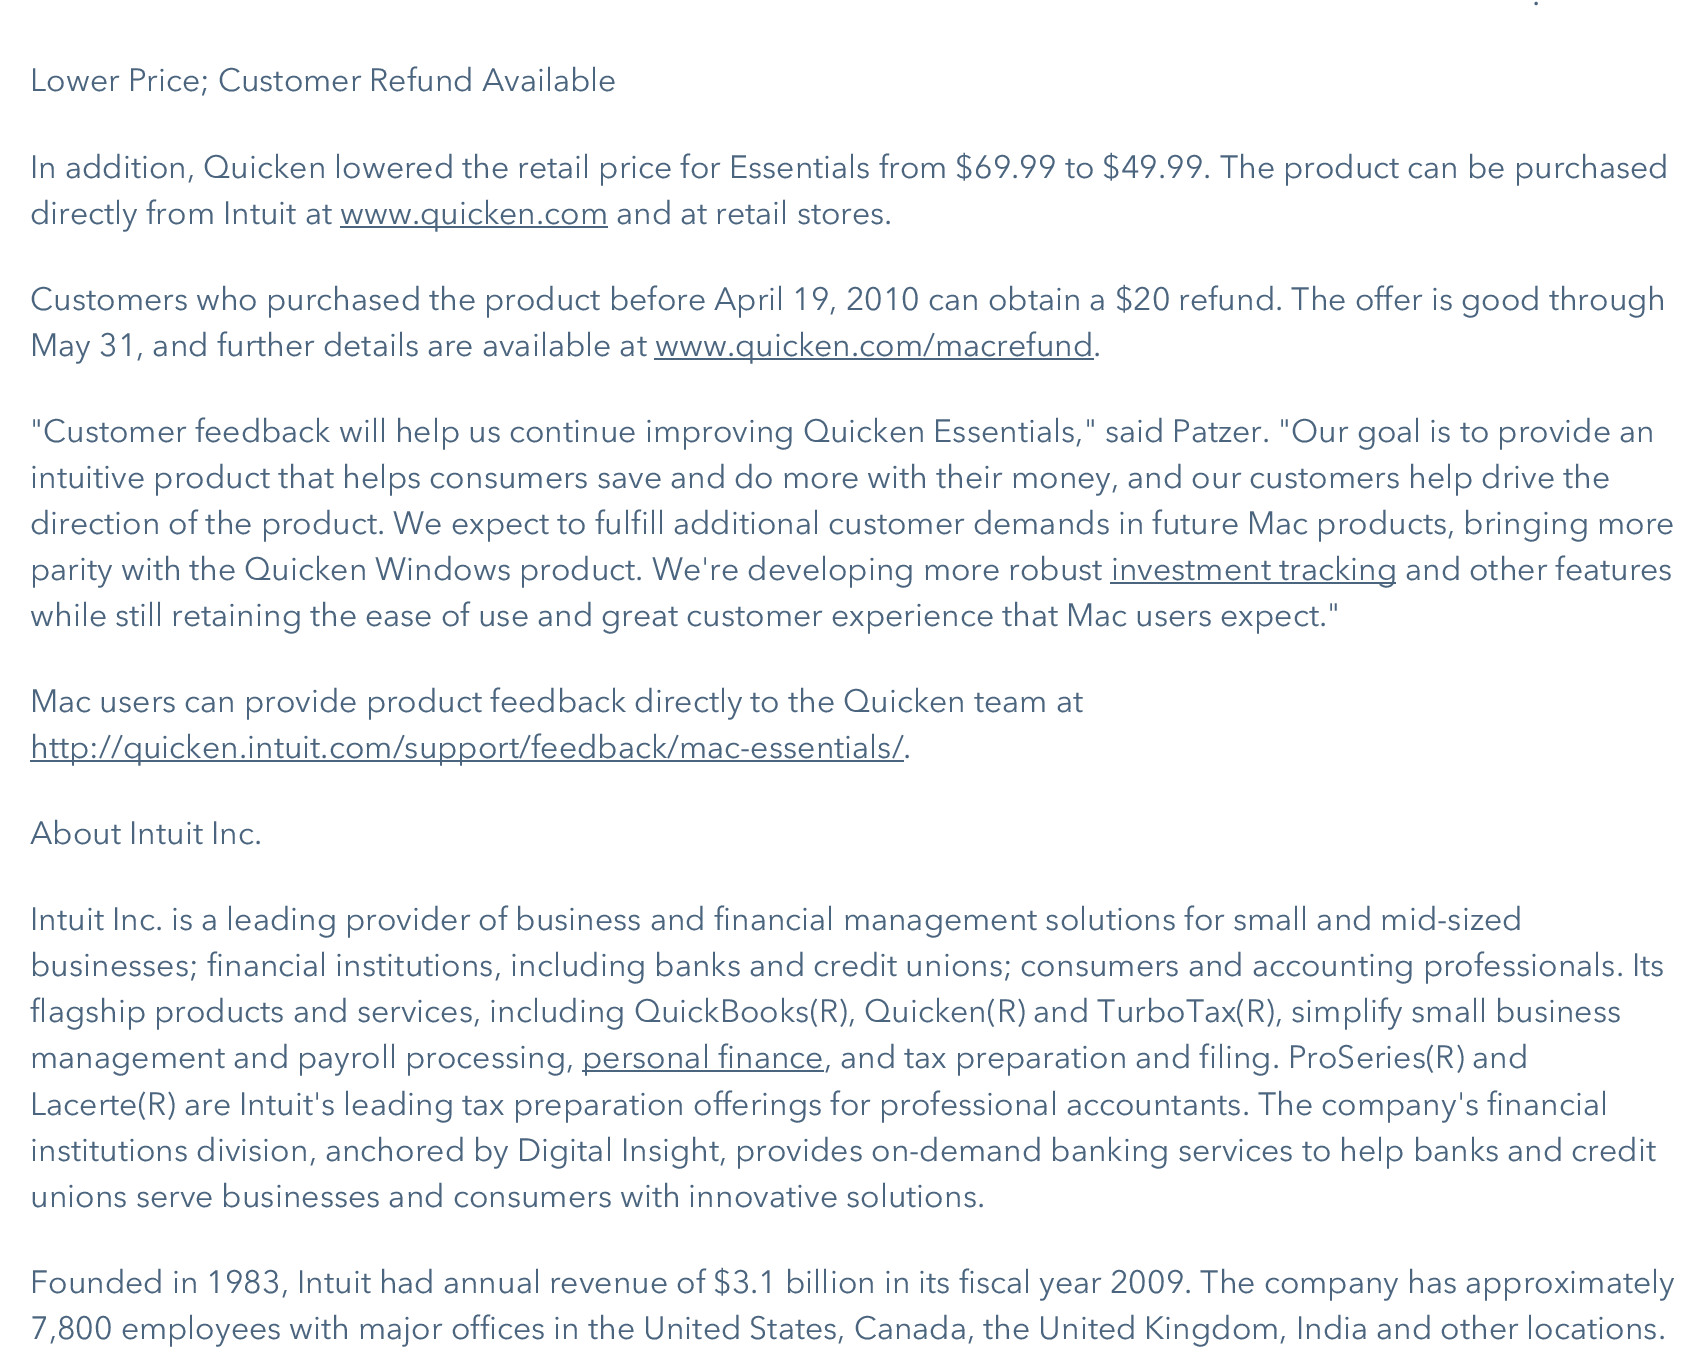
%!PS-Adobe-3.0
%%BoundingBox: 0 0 1707 1355
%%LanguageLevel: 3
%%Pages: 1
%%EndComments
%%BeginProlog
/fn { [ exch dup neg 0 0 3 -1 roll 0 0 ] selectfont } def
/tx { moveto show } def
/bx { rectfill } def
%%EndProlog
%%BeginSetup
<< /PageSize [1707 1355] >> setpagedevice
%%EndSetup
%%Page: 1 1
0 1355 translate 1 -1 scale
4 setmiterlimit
1 setgray
0 0 1707 1355 bx
/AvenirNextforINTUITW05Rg-Regular 32 fn
0.294 0.396 0.498 setrgbcolor
(.) 1532 5 tx
(Lower Price; Customer Refund Available) 30 91 tx
(In addition, Quicken lowered the retail price for Essentials from $69.99 to $49.99. The product can be purchased) 30 178 tx
(directly from Intuit at) 30 224 tx
340 226 268 2 bx
(www.quicken.com and at retail stores.) 340 224 tx
(Customers who purchased the product before April 19, 2010 can obtain a $20 refund. The offer is good through) 30 310 tx
(May 31, and further details are available at) 30 356 tx
654 358 440 2 bx
(www.quicken.com/macrefund.) 655 356 tx
("Customer feedback will help us continue improving Quicken Essentials," said Patzer. "Our goal is to provide an) 30 442 tx
(intuitive product that helps consumers save and do more with their money, and our customers help drive the) 30 488 tx
(direction of the product. We expect to fulfill additional customer demands in future Mac products, bringing more) 30 534 tx
(parity with the Quicken Windows product. We're developing more robust investment) 30 580 tx
1110 582 286 2 bx
(tracking and other features) 1279 580 tx
(while still retaining the ease of use and great customer experience that Mac users expect.") 30 626 tx
(Mac users can provide product feedback directly to the Quicken team at) 30 712 tx
30 760 874 2 bx
(http://quicken.intuit.com/support/feedback/mac-essentials/.) 30 758 tx
(About Intuit Inc.) 30 844 tx
(Intuit Inc. is a leading provider of business and financial management solutions for small and mid-sized) 30 930 tx
(businesses; financial institutions, including banks and credit unions; consumers and accounting professionals. Its) 30 976 tx
(flagship products and services, including QuickBooks\(R\), Quicken\(R\) and TurboTax\(R\), simplify small business) 30 1022 tx
(management and payroll processing,) 30 1068 tx
582 1070 242 2 bx
(personal finance, and tax preparation and filing. ProSeries\(R\) and) 582 1068 tx
(Lacerte\(R\) are Intuit's leading tax preparation offerings for professional accountants. The company's financial) 30 1115 tx
(institutions division, anchored by Digital Insight, provides on-demand banking services to help banks and credit) 30 1161 tx
(unions serve businesses and consumers with innovative solutions.) 30 1207 tx
(Founded in 1983, Intuit had annual revenue of $3.1 billion in its fiscal year 2009. The company has approximately) 30 1293 tx
(7,800 employees with major offices in the United States, Canada, the United Kingdom, India and other locations.) 30 1339 tx
showpage
%%EOF
